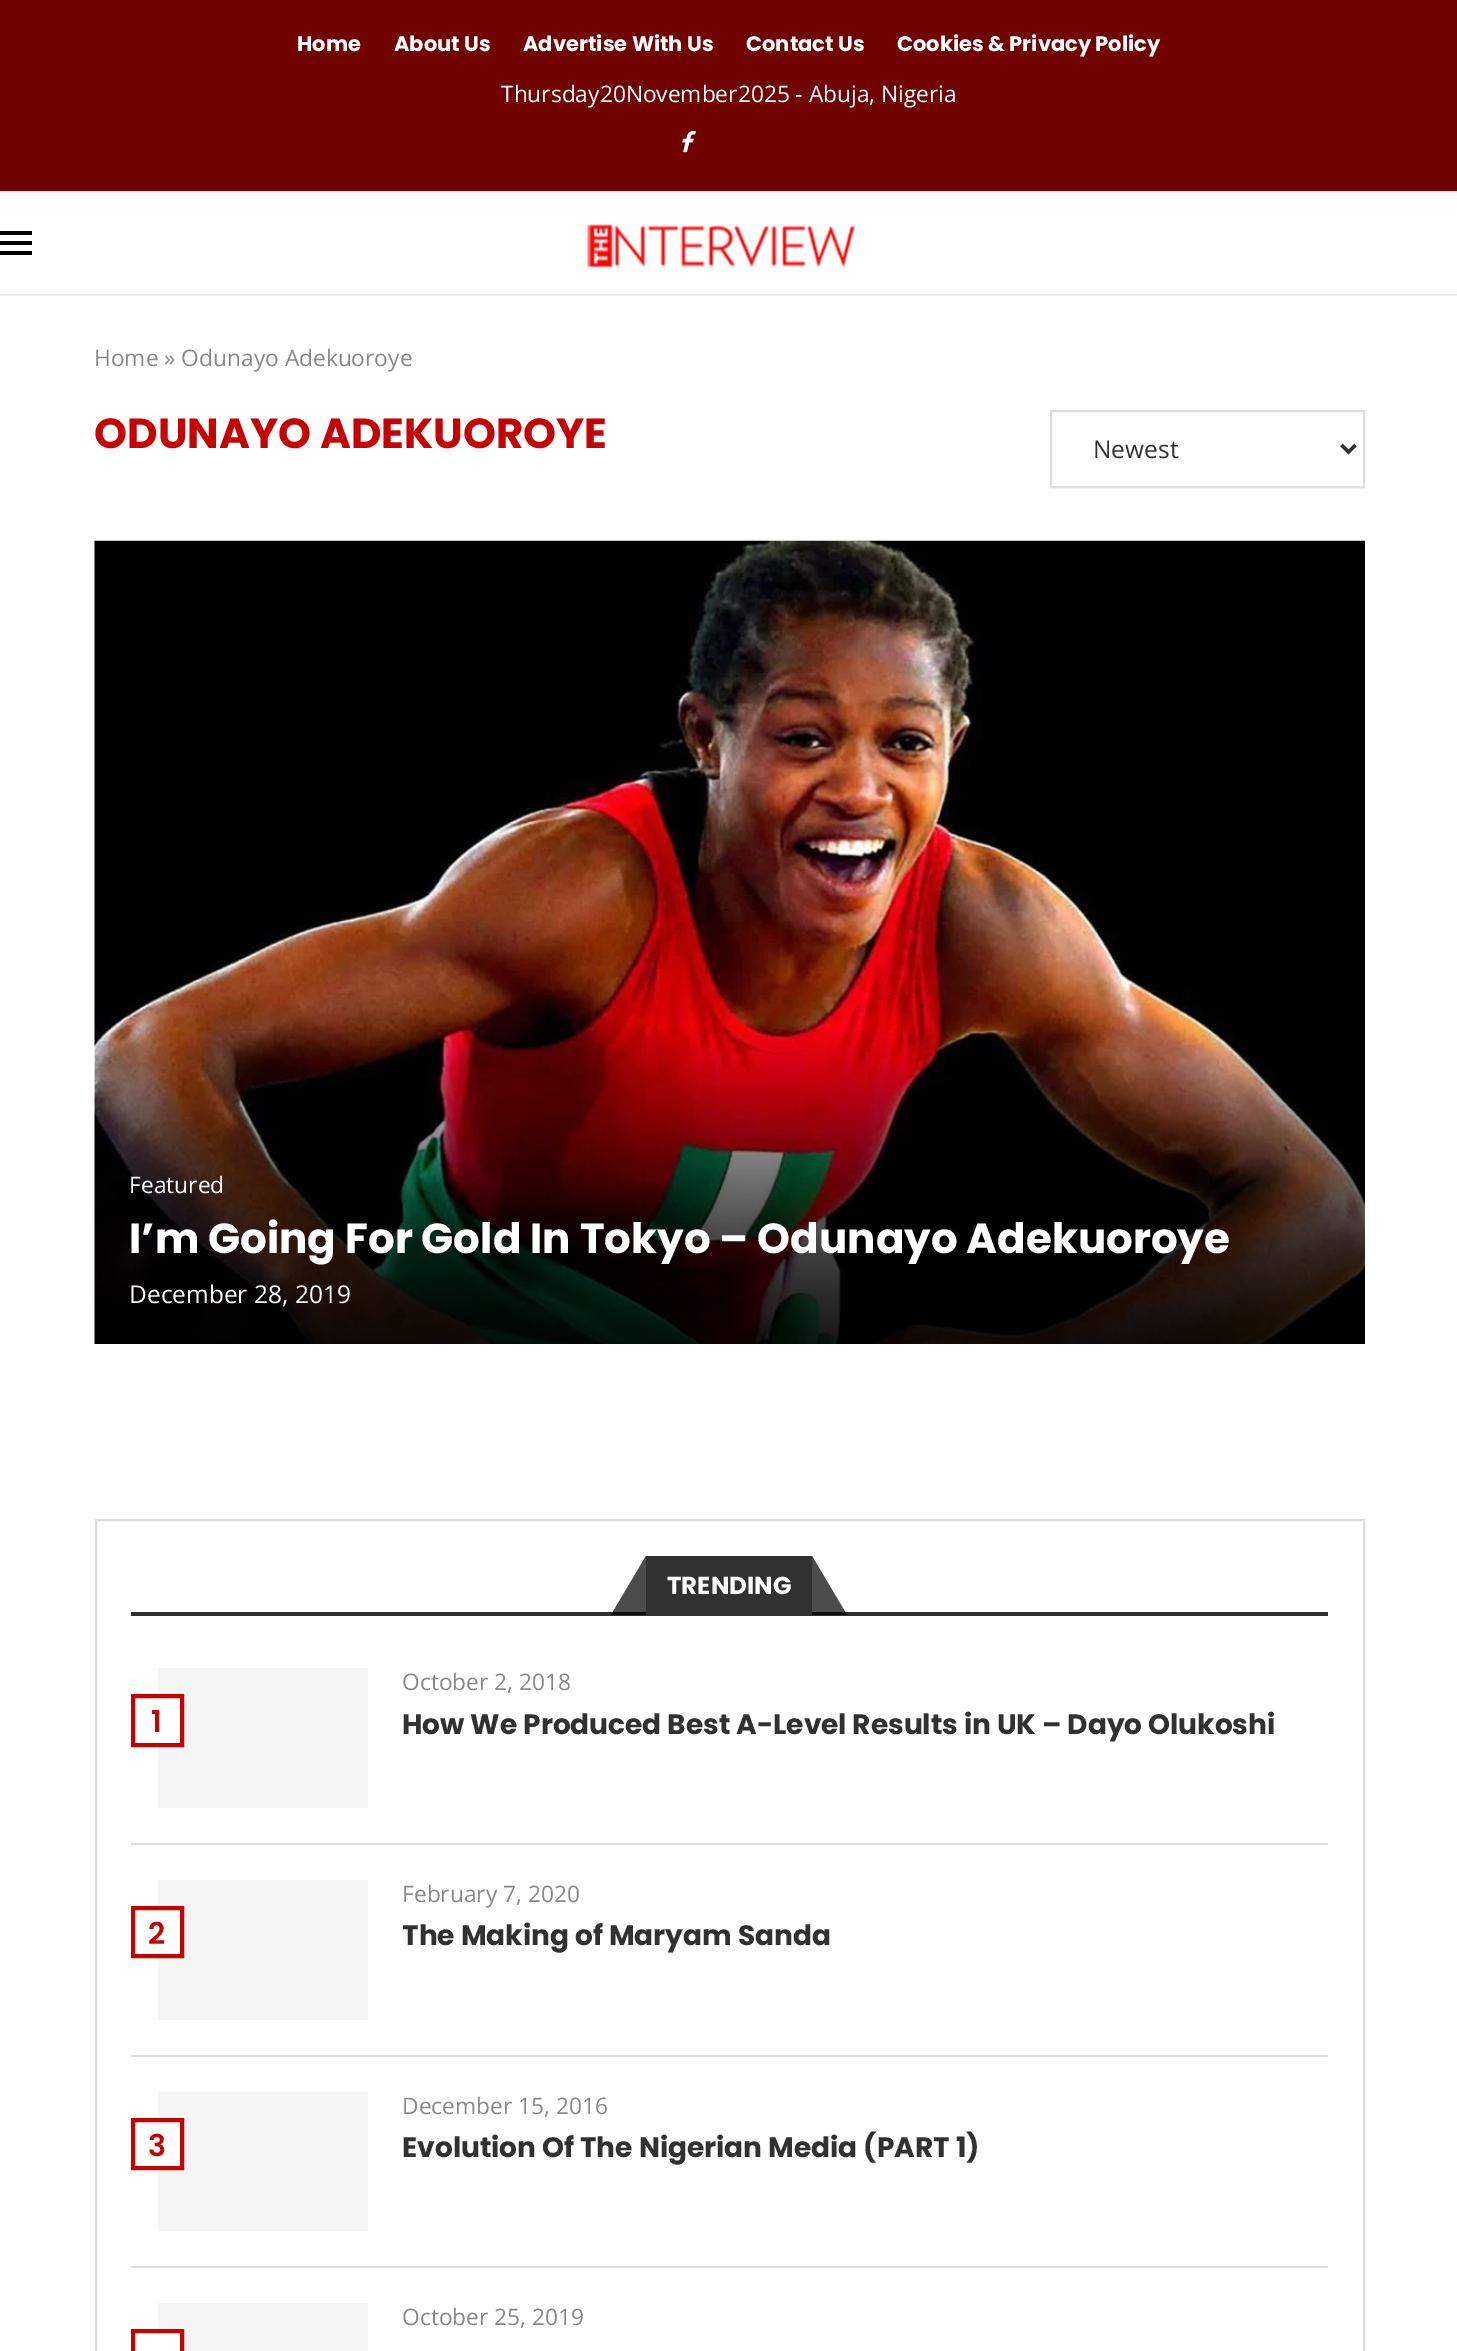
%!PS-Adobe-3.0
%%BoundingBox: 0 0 1457 2351
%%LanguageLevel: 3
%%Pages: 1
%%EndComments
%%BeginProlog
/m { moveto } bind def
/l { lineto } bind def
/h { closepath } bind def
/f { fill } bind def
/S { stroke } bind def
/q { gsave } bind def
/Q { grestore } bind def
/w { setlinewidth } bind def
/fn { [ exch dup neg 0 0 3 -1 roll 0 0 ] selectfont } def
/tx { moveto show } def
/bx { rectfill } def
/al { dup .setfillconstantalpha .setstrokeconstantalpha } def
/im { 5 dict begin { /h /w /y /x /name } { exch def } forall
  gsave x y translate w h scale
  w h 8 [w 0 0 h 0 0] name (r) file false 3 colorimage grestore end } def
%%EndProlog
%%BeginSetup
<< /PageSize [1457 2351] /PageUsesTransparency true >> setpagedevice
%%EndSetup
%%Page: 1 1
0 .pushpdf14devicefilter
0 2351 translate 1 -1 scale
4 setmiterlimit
1 setgray
0 0 1457 2351 bx
0.439 0.008 0.008 setrgbcolor
0 0 1457 191 bx
/Poppins-Bold 21 fn
1 setgray
(Home) 297 51 tx
(About Us) 394 51 tx
(Advertise With Us) 523 51 tx
(Contact Us) 746 51 tx
(Cookies & Privacy Policy) 897 51 tx
/OpenSans-Regular 22.75 fn
(Thursday20November2025 - Abuja, Nigeria) 501 102 tx
(image0.raw) 682 131 14 22 im
0.925 setgray
0 191 1457 2 bx
0 294 1457 2 bx
0 setgray
0 231 32 4 bx
0 241 32 4 bx
0 251 32 4 bx
(image1.raw) 587 224 268 44 im
0.533 setgray
(Home » Odunayo Adekuoroye) 94 366 tx
/Poppins-Bold 42 fn
0.776 0.012 0.012 setrgbcolor
(ODUNAYO ADEKUOROYE) 94 448 tx
0.871 setgray
2 w
1051 411 313 76 rectstroke
0.192 setgray
3.5 w
1341.5 445 m 1348.5 452 l 1355.5 445 l S
/OpenSans-Regular 24.5 fn
(Newest) 1093 458 tx
(image2.raw) 94 540 1271 804 im
/OpenSans-Regular 22.75 fn
1 setgray
(Featured) 129 1193 tx
/Poppins-Bold 42 fn
(I’m Going For Gold In Tokyo – Odunayo Adekuoroye) 129 1253 tx
/OpenSans-Regular 24.5 fn
(December 28, 2019) 129 1303 tx
0.871 setgray
2 w
96 1520 1268 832 rectstroke
0.192 setgray
131 1612 1197 4 bx
646 1556 166 56 bx
0.7 al
0 setgray
646 1615 m 611 1615 l 646 1556 l h f
/Poppins-Bold 24.5 fn
1 al
1 setgray
(TRENDING) 667 1594 tx
0.7 al
0 setgray
847 1615 m 812 1615 l 812 1556 l h f
1 al
0.871 setgray
131 1843 1197 2 bx
0.961 setgray
158 1668 210 140 bx
1 setgray
158 1698 22 45 bx
0.776 0.012 0.012 setrgbcolor
4 w
133 1696 49 49 rectstroke
/Poppins-SemiBold 30 fn
(1) 151 1732 tx
/OpenSans-Regular 22.75 fn
0.533 setgray
(October 2, 2018) 402 1690 tx
/Poppins-Bold 28 fn
0.192 setgray
(How We Produced Best A-Level Results in UK – Dayo Olukoshi) 402 1734 tx
0.871 setgray
131 2055 1197 2 bx
0.961 setgray
158 1880 210 140 bx
1 setgray
158 1910 22 44 bx
0.776 0.012 0.012 setrgbcolor
133 1908 49 48 rectstroke
/Poppins-SemiBold 30 fn
(2) 148 1944 tx
/OpenSans-Regular 22.75 fn
0.533 setgray
(February 7, 2020) 402 1902 tx
q
403 1880 925 77 rectclip
/Poppins-Bold 28 fn
0.192 setgray
(The Making of Maryam Sanda) 402 1945 tx
Q
0.871 setgray
131 2266 1197 2 bx
0.961 setgray
158 2091 210 140 bx
1 setgray
158 2122 22 44 bx
0.776 0.012 0.012 setrgbcolor
133 2120 49 48 rectstroke
/Poppins-SemiBold 30 fn
(3) 148 2156 tx
/OpenSans-Regular 22.75 fn
0.533 setgray
(December 15, 2016) 402 2114 tx
/Poppins-Bold 28 fn
0.192 setgray
(Evolution Of The Nigerian Media \(PART 1\)) 402 2157 tx
0.961 setgray
158 2303 210 48 bx
/OpenSans-Regular 22.75 fn
0.533 setgray
(October 25, 2019) 402 2325 tx
1 setgray
158 2333 22 18 bx
0.776 0.012 0.012 setrgbcolor
133 2331 49 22 rectstroke
.poppdf14devicefilter showpage
%%EOF
